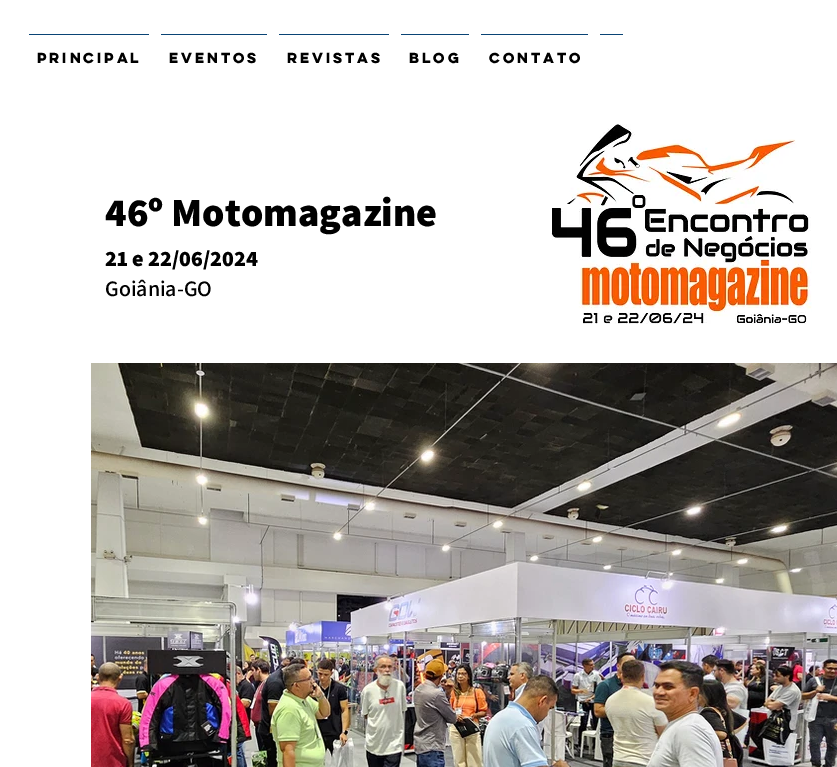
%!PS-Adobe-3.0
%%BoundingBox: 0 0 837 767
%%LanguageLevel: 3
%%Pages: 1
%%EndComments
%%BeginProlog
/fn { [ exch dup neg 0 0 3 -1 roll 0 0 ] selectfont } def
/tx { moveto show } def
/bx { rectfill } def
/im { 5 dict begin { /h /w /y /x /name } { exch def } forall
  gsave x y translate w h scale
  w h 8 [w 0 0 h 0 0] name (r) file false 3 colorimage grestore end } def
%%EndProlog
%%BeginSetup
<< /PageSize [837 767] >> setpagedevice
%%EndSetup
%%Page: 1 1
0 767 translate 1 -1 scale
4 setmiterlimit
1 setgray
0 0 837 767 bx
0.039 0.267 0.459 setrgbcolor
600 34 23 1 bx
29 34 120 1 bx
/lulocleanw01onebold-Bold 13 fn
0 setgray
(Principal) 37 63 tx
0.039 0.267 0.459 setrgbcolor
161 34 106 1 bx
0 setgray
(Eventos) 169 63 tx
0.039 0.267 0.459 setrgbcolor
279 34 110 1 bx
0 setgray
(Revistas) 287 63 tx
0.039 0.267 0.459 setrgbcolor
401 34 68 1 bx
0 setgray
(Blog) 409 63 tx
0.039 0.267 0.459 setrgbcolor
481 34 107 1 bx
0 setgray
(Contato) 489 63 tx
/Assistant-ExtraBold 40 fn
(46º Motomagazine) 105 226 tx
(image0.raw) 551 124 261 200 im
/Assistant-ExtraBold 22 fn
(21 e 22/06/2024) 105 266 tx
/Assistant-SemiBold 22 fn
(Goiânia-GO) 105 296 tx
(image1.raw) 91 363 746 404 im
showpage
%%EOF
